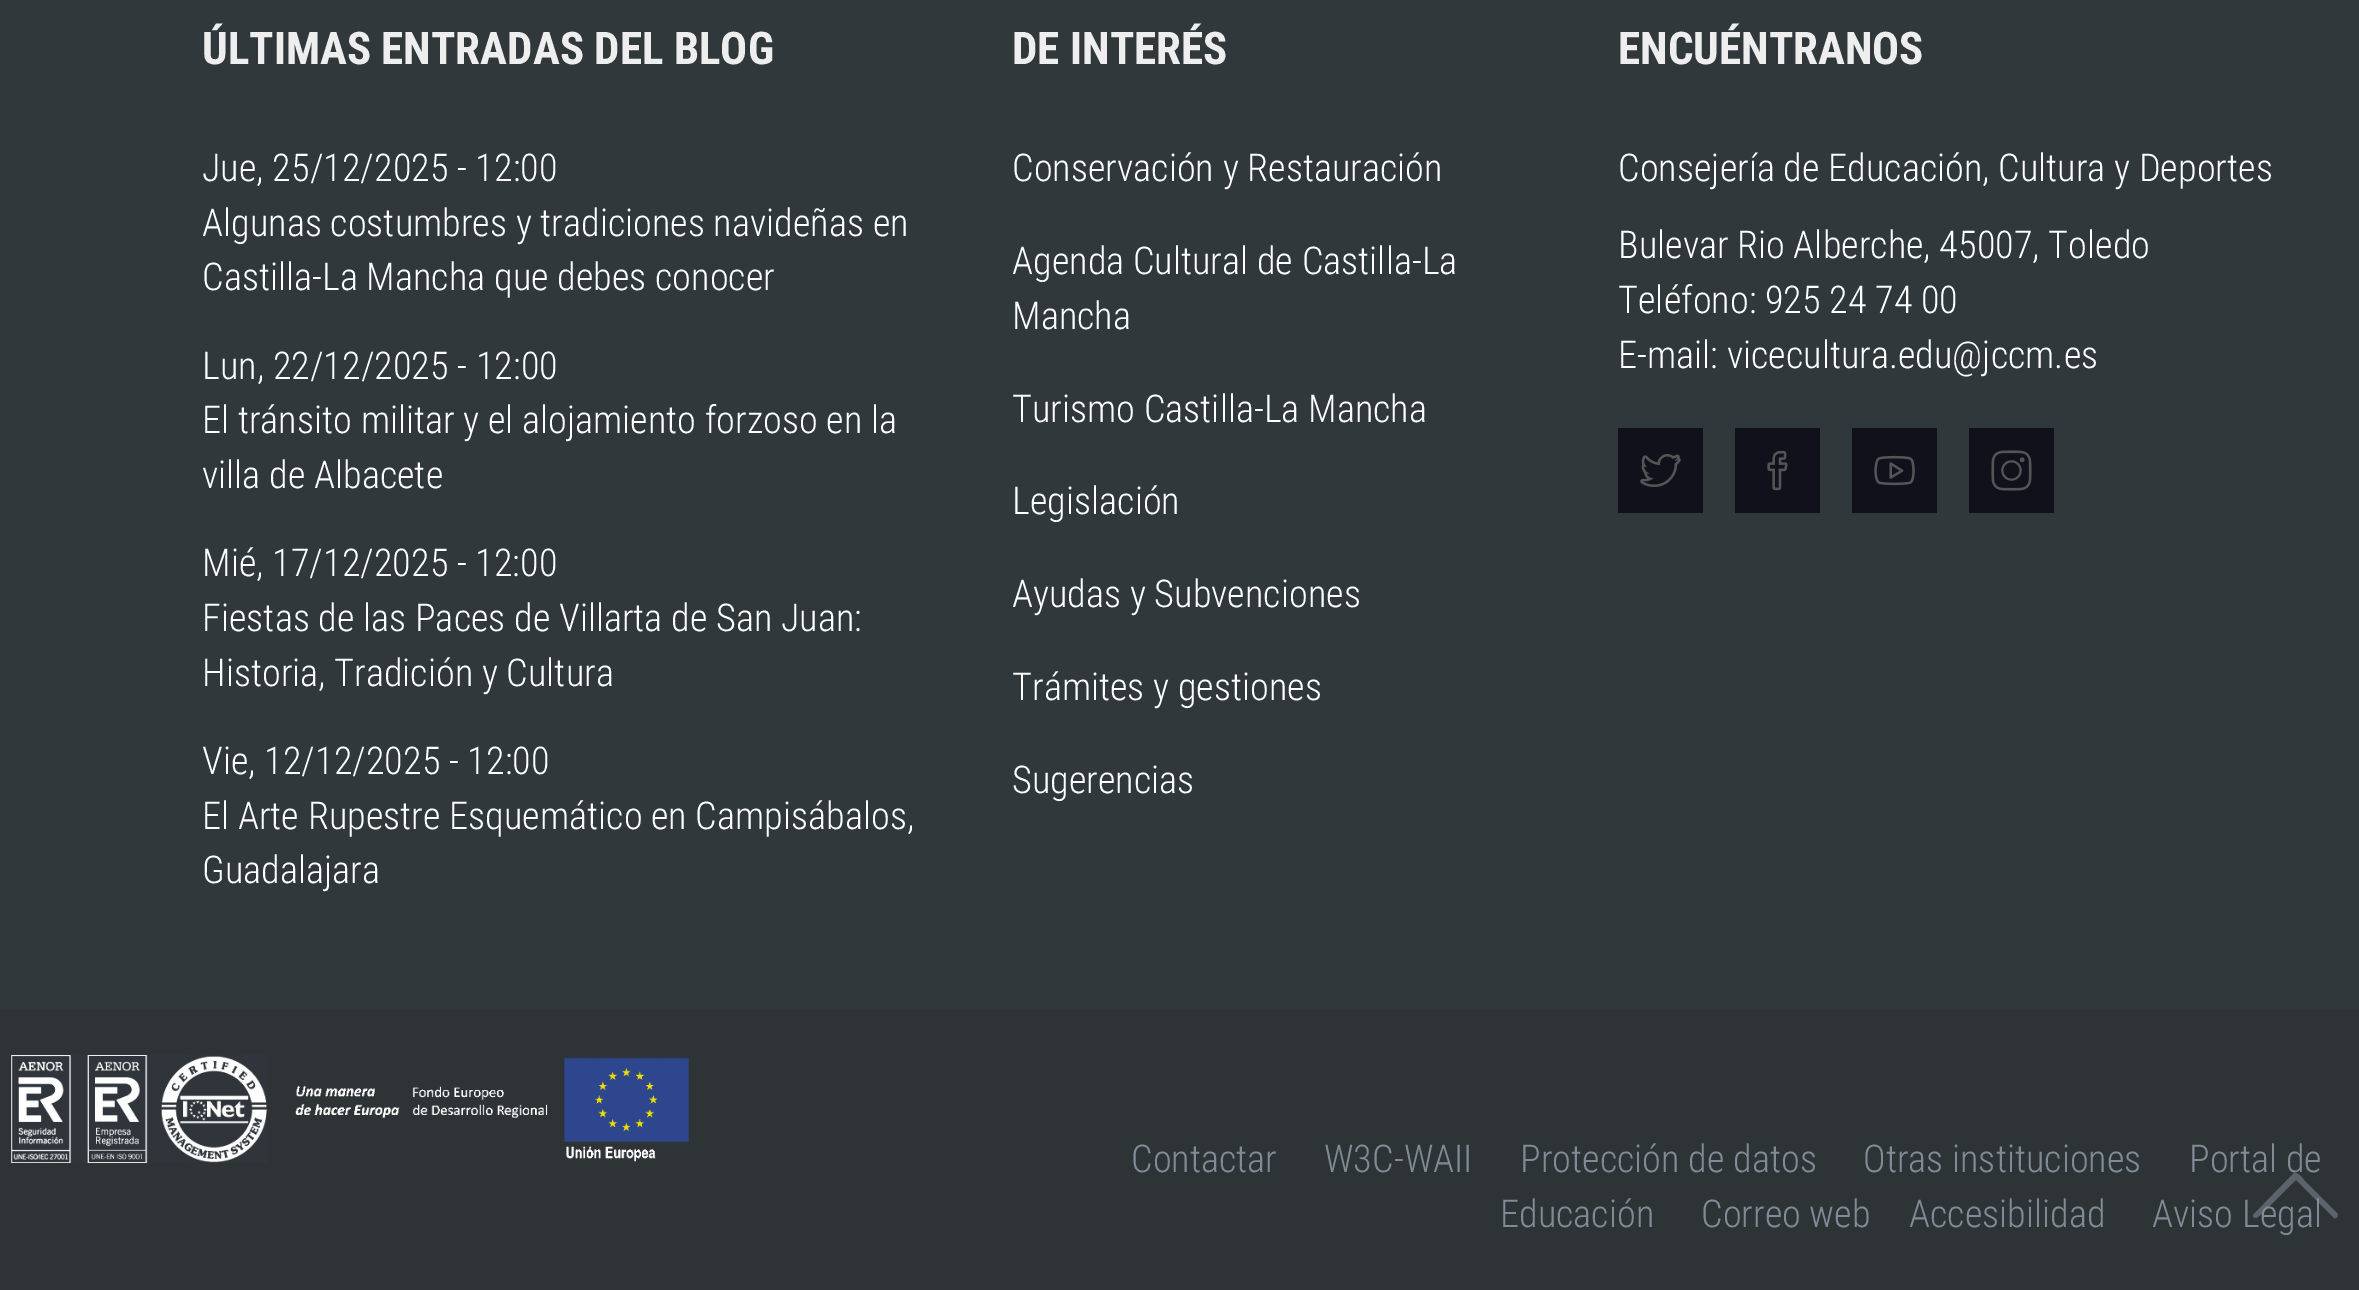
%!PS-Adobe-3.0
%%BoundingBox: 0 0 2359 1290
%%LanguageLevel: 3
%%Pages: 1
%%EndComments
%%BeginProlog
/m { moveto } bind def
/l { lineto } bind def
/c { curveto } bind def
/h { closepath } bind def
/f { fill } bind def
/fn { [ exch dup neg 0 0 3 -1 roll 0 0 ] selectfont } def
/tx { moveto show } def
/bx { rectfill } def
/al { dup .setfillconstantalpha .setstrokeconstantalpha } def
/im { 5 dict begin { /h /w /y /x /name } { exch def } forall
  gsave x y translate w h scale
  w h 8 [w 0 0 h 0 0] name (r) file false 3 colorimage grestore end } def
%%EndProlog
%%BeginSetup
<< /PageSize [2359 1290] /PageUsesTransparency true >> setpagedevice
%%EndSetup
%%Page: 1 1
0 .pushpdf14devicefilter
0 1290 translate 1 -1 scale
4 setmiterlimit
0.192 0.22 0.235 setrgbcolor
0 0 2359 1290 bx
/RobotoCondensed-Bold 45 fn
0.933 setgray
(ÚLTIMAS ENTRADAS DEL BLOG) 202 64 tx
/RobotoCondensed-Light 38.25 fn
1 setgray
(Jue, 25/12/2025 - 12:00) 202 181 tx
(Algunas costumbres y tradiciones navideñas en) 202 236 tx
(Castilla-La Mancha que debes conocer) 202 290 tx
(Lun, 22/12/2025 - 12:00) 202 379 tx
(El tránsito militar y el alojamiento forzoso en la) 202 433 tx
(villa de Albacete) 202 488 tx
(Mié, 17/12/2025 - 12:00) 202 576 tx
(Fiestas de las Paces de Villarta de San Juan:) 202 631 tx
(Historia, Tradición y Cultura) 202 686 tx
(Vie, 12/12/2025 - 12:00) 202 774 tx
(El Arte Rupestre Esquemático en Campisábalos,) 202 829 tx
(Guadalajara) 202 883 tx
/RobotoCondensed-Bold 45 fn
0.933 setgray
(DE INTERÉS) 1012 64 tx
/RobotoCondensed-Light 38.25 fn
1 setgray
(Conservación y Restauración) 1012 181 tx
(Agenda Cultural de Castilla-La) 1012 274 tx
(Mancha) 1012 329 tx
(Turismo Castilla-La Mancha) 1012 422 tx
(Legislación) 1012 514 tx
(Ayudas y Subvenciones) 1012 607 tx
(Trámites y gestiones) 1012 700 tx
(Sugerencias) 1012 793 tx
/RobotoCondensed-Bold 45 fn
0.933 setgray
(ENCUÉNTRANOS) 1618 64 tx
/RobotoCondensed-Light 38.25 fn
1 setgray
(Consejería de Educación, Cultura y Deportes) 1618 181 tx
(Bulevar Rio Alberche, 45007, Toledo) 1618 258 tx
(Teléfono: 925 24 74 00) 1618 313 tx
(E-mail: vicecultura.edu@jccm.es) 1618 368 tx
0.067 0.067 0.11 setrgbcolor
1618 428 85 85 bx
(image0.raw) 1640 454 41 33 im
1735 428 85 85 bx
(image1.raw) 1767 450 21 41 im
1852 428 85 85 bx
(image2.raw) 1874 455 41 31 im
1969 428 85 85 bx
(image3.raw) 1991 450 41 41 im
0.18 0.2 0.212 setrgbcolor
0 1010 2359 280 bx
(image4.raw) 11 1055 257 108 im
(image5.raw) 295 1057 394 105 im
0.498 0.549 0.592 setrgbcolor
(Contactar) 1131 1172 tx
(W3C-WAII) 1324 1172 tx
(Protección de datos) 1520 1172 tx
(Otras instituciones) 1863 1172 tx
(Portal de) 2189 1172 tx
(Educación) 1500 1227 tx
(Correo web) 1701 1227 tx
(Accesibilidad) 1909 1227 tx
(Aviso Legal) 2152 1227 tx
0.5 al
0.537 0.576 0.62 setrgbcolor
2253 1215 m 2252 1216 2254 1218 2256 1218 c 2259 1218 2291 1184 2296 1180 c 2334 1218 l 2337 1219 2339 1215 2337 1213 c 2304 1180 l 2304 1180 2297 1170 2293 1174 c h f
.poppdf14devicefilter showpage
%%EOF
